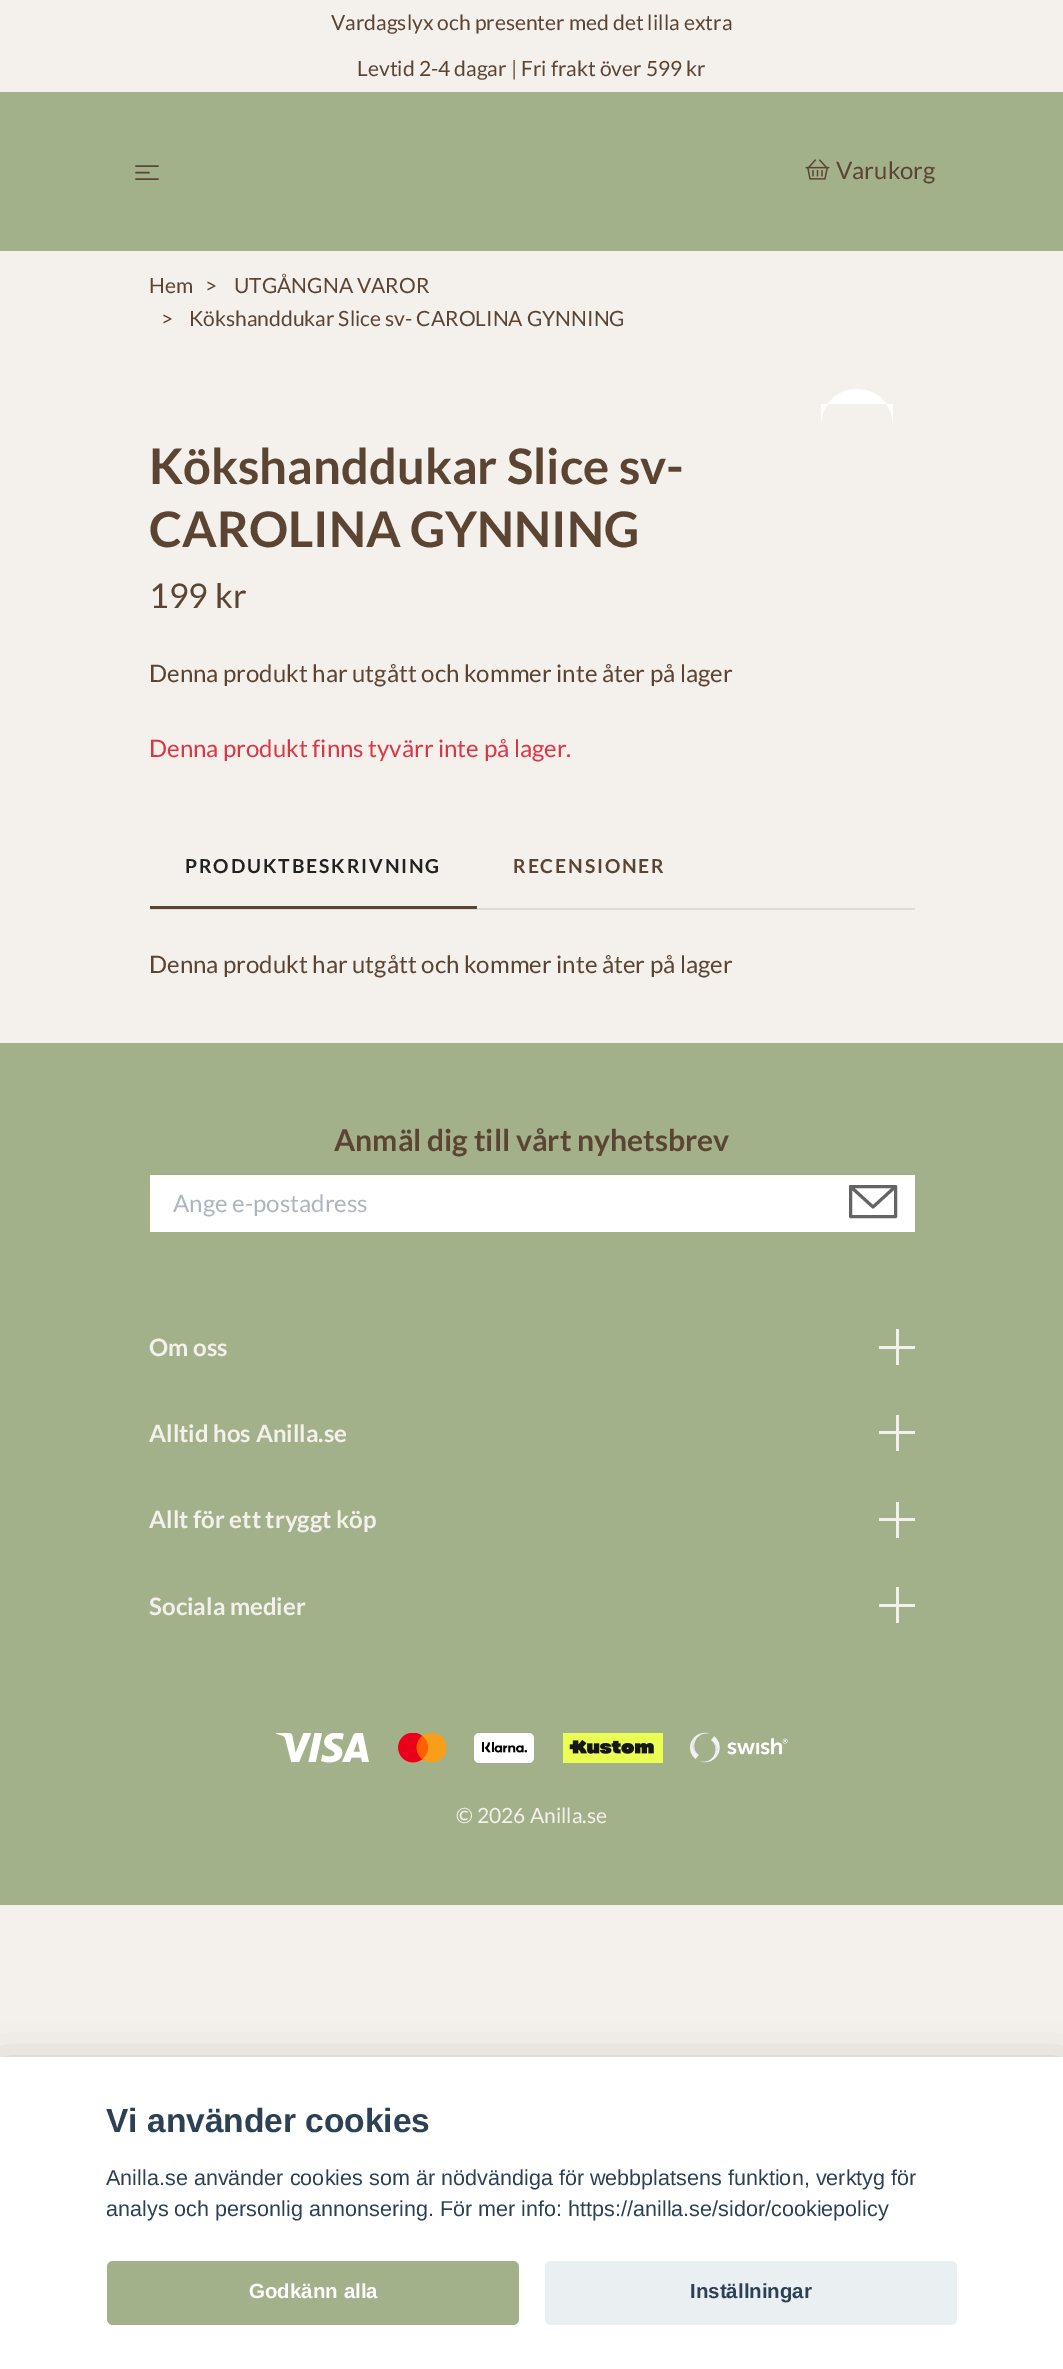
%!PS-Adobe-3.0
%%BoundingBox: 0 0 1063 2369
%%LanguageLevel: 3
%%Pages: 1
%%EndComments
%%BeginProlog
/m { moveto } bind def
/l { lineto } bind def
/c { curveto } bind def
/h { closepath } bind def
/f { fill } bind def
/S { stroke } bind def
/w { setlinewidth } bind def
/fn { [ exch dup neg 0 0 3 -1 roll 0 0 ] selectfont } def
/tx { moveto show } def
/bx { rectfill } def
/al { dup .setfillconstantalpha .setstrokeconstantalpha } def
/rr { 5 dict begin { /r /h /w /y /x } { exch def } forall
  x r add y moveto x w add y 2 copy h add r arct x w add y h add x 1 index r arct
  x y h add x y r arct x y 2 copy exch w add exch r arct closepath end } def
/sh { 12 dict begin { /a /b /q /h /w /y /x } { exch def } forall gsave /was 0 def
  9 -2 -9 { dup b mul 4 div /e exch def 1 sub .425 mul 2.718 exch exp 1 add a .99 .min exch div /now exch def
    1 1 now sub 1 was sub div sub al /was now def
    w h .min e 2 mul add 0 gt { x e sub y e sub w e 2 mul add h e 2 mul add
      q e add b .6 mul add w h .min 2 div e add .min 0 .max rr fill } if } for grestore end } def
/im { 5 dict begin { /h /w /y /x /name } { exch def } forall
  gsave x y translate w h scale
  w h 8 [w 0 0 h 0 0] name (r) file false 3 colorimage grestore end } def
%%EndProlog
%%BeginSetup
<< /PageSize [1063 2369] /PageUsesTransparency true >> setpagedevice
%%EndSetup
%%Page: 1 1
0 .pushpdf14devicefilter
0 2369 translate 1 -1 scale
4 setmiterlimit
0.957 0.945 0.925 setrgbcolor
0 0 1063 2369 bx
/Lato-Regular 21 fn
0.361 0.267 0.2 setrgbcolor
(Vardagslyx och presenter med det lilla extra) 331 30 tx
(Levtid 2-4 dagar | Fri frakt över 599 kr) 357 76 tx
0.639 0.694 0.541 setrgbcolor
0 92 1063 159 bx
0.361 0.267 0.2 setrgbcolor
1.5 w
1 setlinecap
1 setlinejoin
136 166 m 158 166 l 136 172.5 m 149 172.5 l 136 179 m 158 179 l S
(image0.raw) 805 159 25 21 im
/Lato-Regular 24 fn
(Varukorg) 836 179 tx
/Lato-Regular 21 fn
(Hem) 149 293 tx
(>) 205 293 tx
(UTGÅNGNA VAROR) 234 293 tx
(>) 161 326 tx
(Kökshanddukar Slice sv- CAROLINA GYNNING) 189 326 tx
1 setgray
857 389 m 877 389 893 405 893 425 c 893 404 l 821 404 l 821 425 l 821 405 837 389 857 389 c h f
/Lato-Bold 49 fn
0.361 0.267 0.2 setrgbcolor
(Kökshanddukar Slice sv-) 149 484 tx
(CAROLINA GYNNING) 149 547 tx
/Lato-Regular 34 fn
(199 kr) 149 608 tx
/Lato-Regular 24 fn
(Denna produkt har utgått och kommer inte åter på lager) 149 682 tx
0.863 0.208 0.271 setrgbcolor
(Denna produkt finns tyvärr inte på lager.) 149 757 tx
0.875 0.863 0.847 setrgbcolor
150 908 765 2 bx
0.361 0.267 0.2 setrgbcolor
150 906 327 3 bx
/Lato-Bold 19.25 fn
0.133 setgray
185 873 m 1.9 0 (PRODUKTBESKRIVNING) ashow
0.361 0.267 0.2 setrgbcolor
513 873 m 1.9 0 (RECENSIONER) ashow
/Lato-Regular 24 fn
(Denna produkt har utgått och kommer inte åter på lager) 149 973 tx
0.639 0.694 0.541 setrgbcolor
0 1043 1063 862 bx
/Lato-Bold 30 fn
0.361 0.267 0.2 setrgbcolor
(Anmäl dig till vårt nyhetsbrev) 334 1151 tx
1 setgray
150 1175 765 57 bx
/Lato-Regular 24 fn
0.678 0.71 0.741 setrgbcolor
(Ange e-postadress) 173 1212 tx
0.392 setgray
3 w
850.5 1186.5 m 873 1207 l 895.5 1186.5 l 850.5 1186.5 m 895.5 1186.5 l 895.5 1216.5 l 850.5 1216.5 l h S
/Lato-Bold 24 fn
0.957 0.945 0.925 setrgbcolor
(Om oss) 149 1356 tx
896 1329 3 36 bx
879 1346 36 3 bx
(Alltid hos Anilla.se) 149 1442 tx
896 1415 3 36 bx
879 1431 36 3 bx
(Allt för ett tryggt köp) 149 1528 tx
896 1502 3 36 bx
879 1518 36 3 bx
(Sociala medier) 149 1615 tx
896 1587 3 36 bx
879 1604 36 3 bx
(image1.raw) 276 1733 93 30 im
(image2.raw) 398 1733 48 30 im
(image3.raw) 474 1733 60 30 im
(image4.raw) 563 1733 100 30 im
(image5.raw) 690 1732 98 31 im
/Lato-Regular 21 fn
(© 2026 Anilla.se) 456 1823 tx
0.008 0.008 0.012 setrgbcolor
0 2072 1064 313 0 22.5 0.28 sh
1 setgray
0 2057 1063 312 bx
/LiberationSans-Bold 33.5 fn
0.176 0.255 0.337 setrgbcolor
(Vi använder cookies) 106 2132 tx
/LiberationSans-Regular 21.6 fn
(Anilla.se använder cookies som är nödvändiga för webbplatsens funktion, verktyg för) 106 2185 tx
(analys och personlig annonsering. För mer info: https://anilla.se/sidor/cookiepolicy) 106 2216 tx
0.639 0.694 0.541 setrgbcolor
107 2261 412 64 6 rr f
/LiberationSans-Bold 20.5 fn
1 setgray
(Godkänn alla) 249 2298 tx
0.918 0.937 0.949 setrgbcolor
545 2261 412 64 6 rr f
0.176 0.255 0.337 setrgbcolor
(Inställningar) 690 2298 tx
.poppdf14devicefilter showpage
%%EOF
